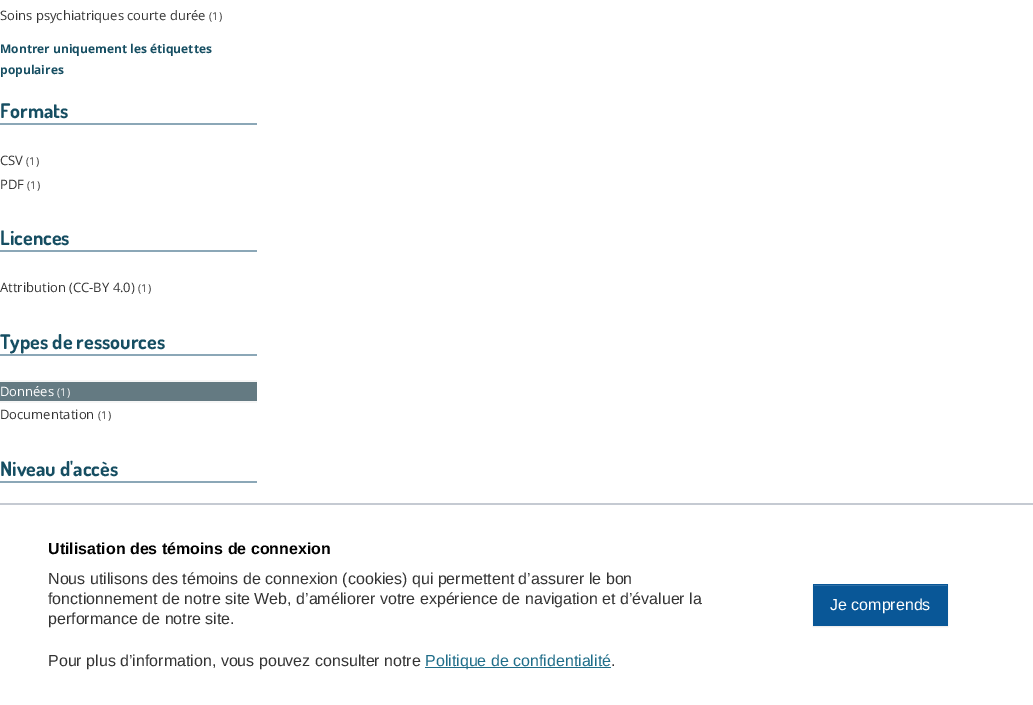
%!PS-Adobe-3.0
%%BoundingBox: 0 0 1033 705
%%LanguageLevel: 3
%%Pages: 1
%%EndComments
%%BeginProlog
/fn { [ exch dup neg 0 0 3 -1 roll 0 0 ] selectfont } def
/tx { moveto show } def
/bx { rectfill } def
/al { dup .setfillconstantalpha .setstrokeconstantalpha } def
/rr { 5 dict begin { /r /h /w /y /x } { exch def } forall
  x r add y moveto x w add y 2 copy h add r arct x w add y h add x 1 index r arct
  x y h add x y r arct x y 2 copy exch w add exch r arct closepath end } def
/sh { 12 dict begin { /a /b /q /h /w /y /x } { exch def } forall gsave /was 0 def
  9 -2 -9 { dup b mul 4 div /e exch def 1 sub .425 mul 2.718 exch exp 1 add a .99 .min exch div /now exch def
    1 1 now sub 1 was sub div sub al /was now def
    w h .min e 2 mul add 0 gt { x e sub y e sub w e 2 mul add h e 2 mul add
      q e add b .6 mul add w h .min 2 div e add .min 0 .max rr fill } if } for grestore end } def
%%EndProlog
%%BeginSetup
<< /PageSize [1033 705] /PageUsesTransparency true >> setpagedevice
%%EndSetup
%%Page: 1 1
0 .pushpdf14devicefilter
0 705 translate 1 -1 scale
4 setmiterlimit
1 setgray
0 0 1033 705 bx
/OpenSans-Regular 13 fn
0.2 setgray
(Soins psychiatriques courte durée) 0 20 tx
/OpenSans-Regular 11 fn
(\(1\)) 209 20 tx
/OpenSans-Bold 12 fn
0.086 0.306 0.384 setrgbcolor
(Montrer uniquement les étiquettes) 0 53 tx
(populaires) 0 74 tx
/Dosis-Bold 20 fn
(Formats) 0 118 tx
0.545 0.655 0.718 setrgbcolor
0 123 257 2 bx
/OpenSans-Regular 13 fn
0.2 setgray
(CSV) 0 165 tx
/OpenSans-Regular 11 fn
(\(1\)) 26 165 tx
/OpenSans-Regular 13 fn
(PDF) 0 189 tx
/OpenSans-Regular 11 fn
(\(1\)) 27 189 tx
/Dosis-Bold 20 fn
0.086 0.306 0.384 setrgbcolor
(Licences) 0 245 tx
0.545 0.655 0.718 setrgbcolor
0 250 257 2 bx
/OpenSans-Regular 13 fn
0.2 setgray
(Attribution \(CC-BY 4.0\)) 0 292 tx
/OpenSans-Regular 11 fn
(\(1\)) 138 292 tx
/Dosis-Bold 20 fn
0.086 0.306 0.384 setrgbcolor
(Types de ressources) 0 349 tx
0.545 0.655 0.718 setrgbcolor
0 354 257 2 bx
0.965 setgray
0 380 257 23 bx
0.392 0.478 0.51 setrgbcolor
0 382 257 19 bx
/OpenSans-Regular 13 fn
1 setgray
(Données) 0 396 tx
/OpenSans-Regular 11 fn
(\(1\)) 57 396 tx
/OpenSans-Regular 13 fn
0.2 setgray
(Documentation) 0 419 tx
/OpenSans-Regular 11 fn
(\(1\)) 98 419 tx
/Dosis-Bold 20 fn
0.086 0.306 0.384 setrgbcolor
(Niveau d'accès) 0 476 tx
0.545 0.655 0.718 setrgbcolor
0 481 257 2 bx
0.773 0.792 0.824 setrgbcolor
0 503 1033 2 bx
/LiberationSans-Bold 16 fn
0 setgray
(Utilisation des témoins de connexion) 48 554 tx
/LiberationSans-Regular 16 fn
0.2 setgray
(Nous utilisons des témoins de connexion \(cookies\) qui permettent d’assurer le bon) 48 584 tx
(fonctionnement de notre site Web, d’améliorer votre expérience de navigation et d’évaluer la) 48 604 tx
(performance de notre site.) 48 624 tx
(Pour plus d’information, vous pouvez consulter notre) 48 666 tx
0.122 0.427 0.537 setrgbcolor
425 667 186 1 bx
(Politique de confidentialité) 425 666 tx
0.2 setgray
(.) 611 666 tx
0 setgray
813 585 135 42 0 0.5 0.07 sh
0.035 0.341 0.592 setrgbcolor
813 584 135 42 bx
0.18 0.439 0.655 setrgbcolor
814 585 133 1 bx
1 setgray
(Je comprends) 830 610 tx
.poppdf14devicefilter showpage
%%EOF
